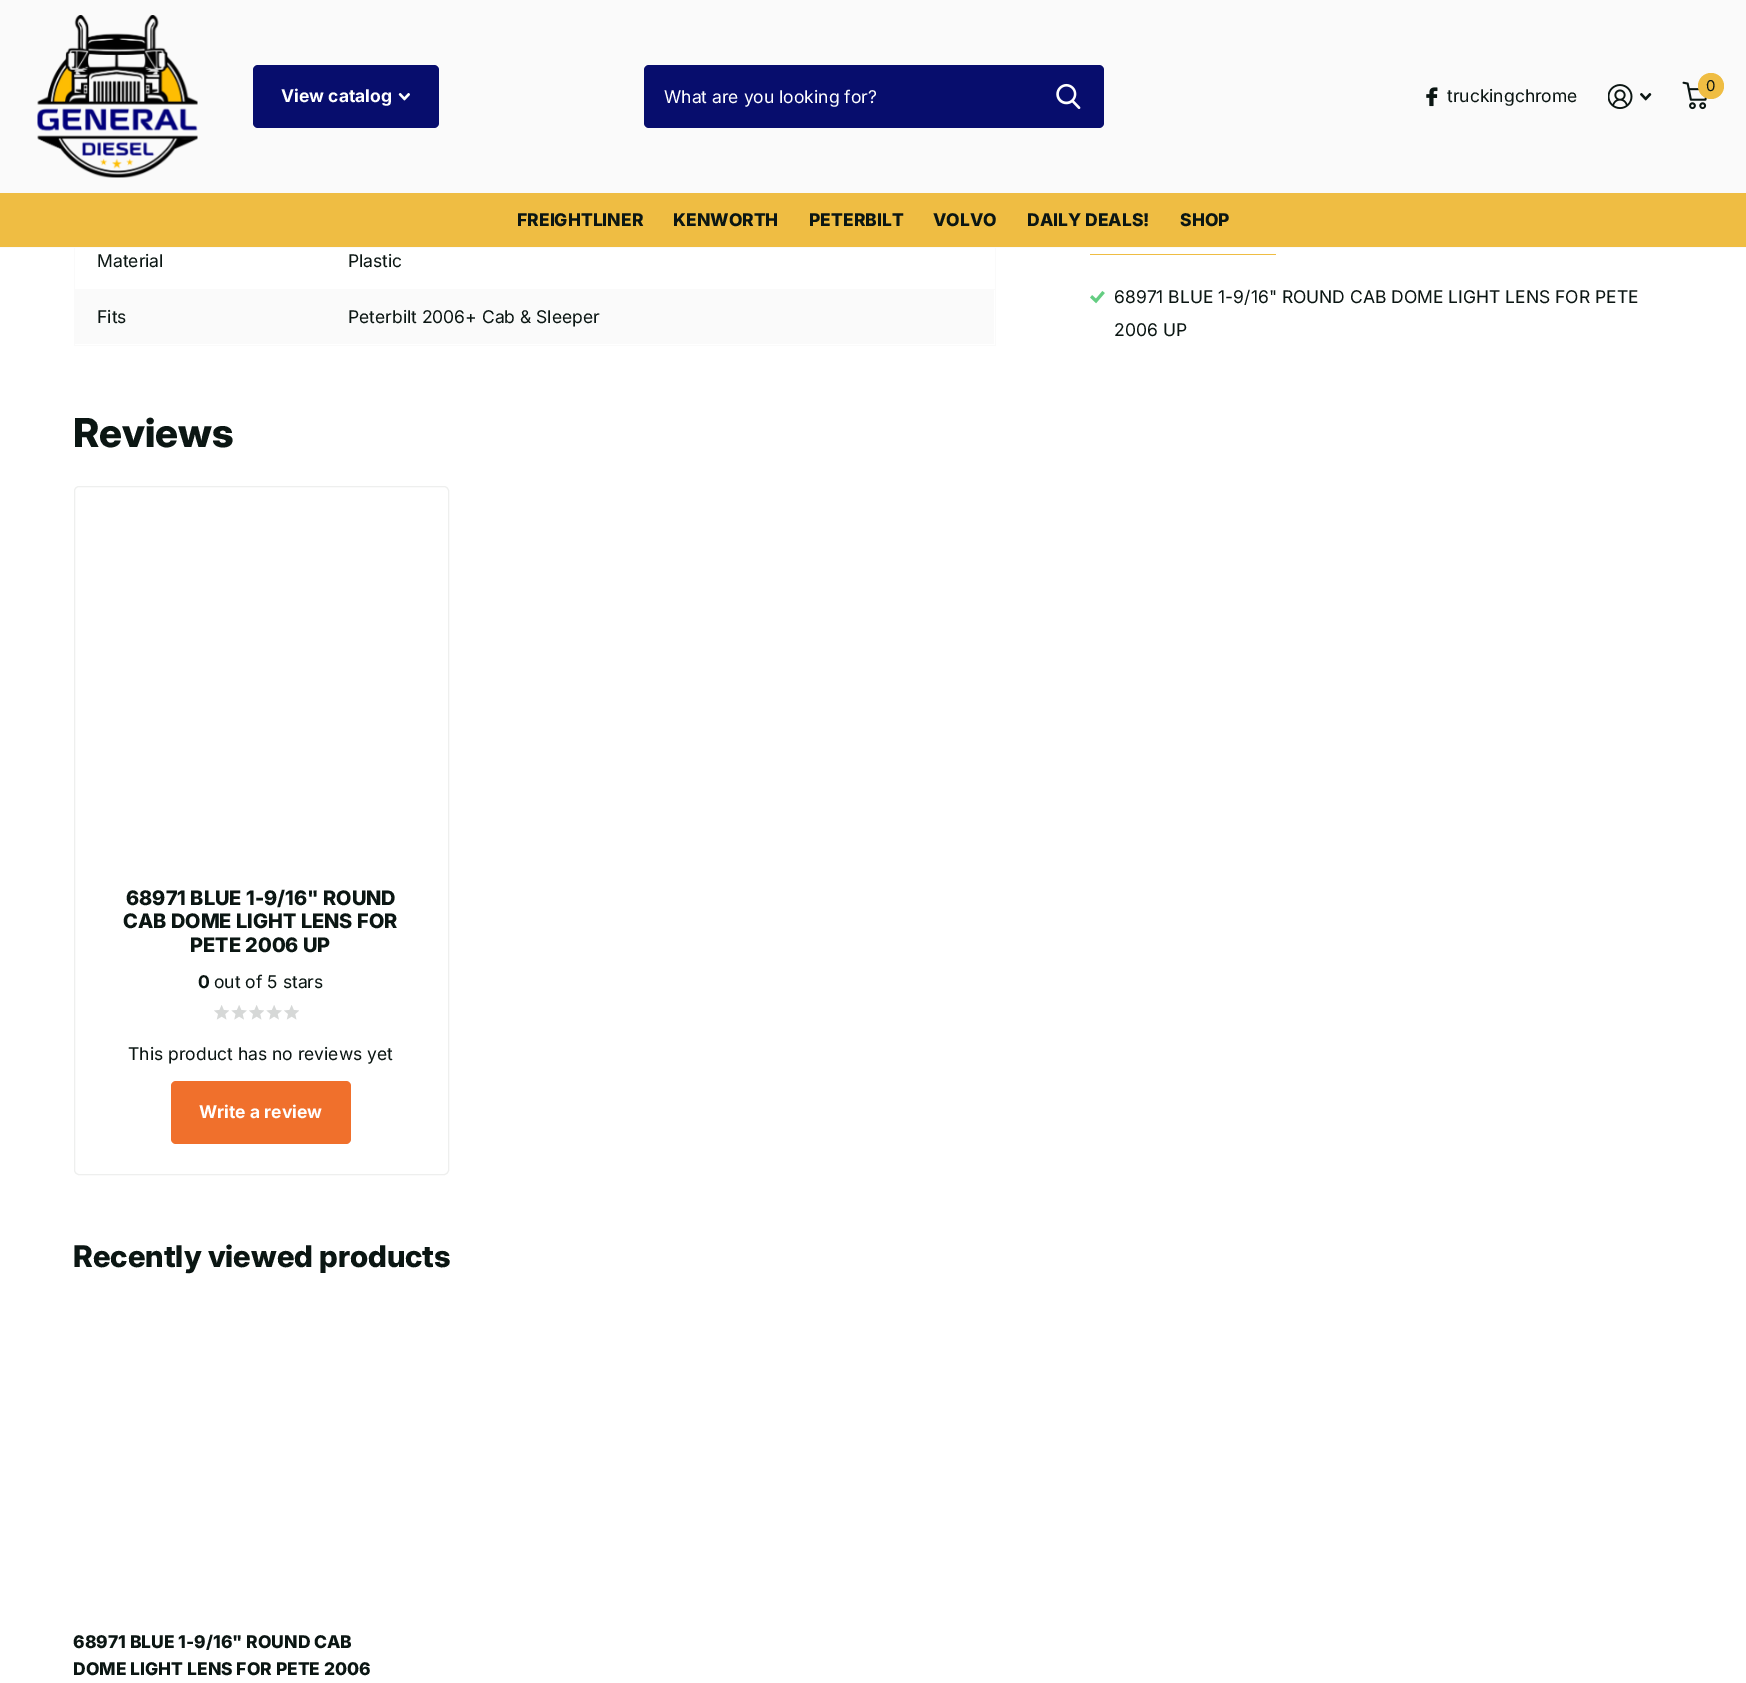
%!PS-Adobe-3.0
%%BoundingBox: 0 0 1746 1683
%%LanguageLevel: 3
%%Pages: 1
%%EndComments
%%BeginProlog
/f { fill } bind def
/S { stroke } bind def
/fn { [ exch dup neg 0 0 3 -1 roll 0 0 ] selectfont } def
/tx { moveto show } def
/bx { rectfill } def
/ci { newpath 0 360 arc closepath } def
/rr { 5 dict begin { /r /h /w /y /x } { exch def } forall
  x r add y moveto x w add y 2 copy h add r arct x w add y h add x 1 index r arct
  x y h add x y r arct x y 2 copy exch w add exch r arct closepath end } def
/im { 5 dict begin { /h /w /y /x /name } { exch def } forall
  gsave x y translate w h scale
  w h 8 [w 0 0 h 0 0] name (r) file false 3 colorimage grestore end } def
%%EndProlog
%%BeginSetup
<< /PageSize [1746 1683] >> setpagedevice
%%EndSetup
%%Page: 1 1
0 1683 translate 1 -1 scale
4 setmiterlimit
1 setgray
0 0 1746 1683 bx
0.98 setgray
0 0 1746 248 bx
(image0.raw) 37 15 161 163 im
0.027 0.051 0.427 setrgbcolor
253 65 186 63 5 rr f
/Inter-Bold 17.5 fn
1 setgray
(View catalog) 281 102 tx
(image1.raw) 398 93 12 8 im
0.027 0.051 0.427 setrgbcolor
644 65 460 63 5 rr f
/Inter-Regular 17.5 fn
1 setgray
(What are you looking for?) 664 103 tx
(image2.raw) 1056 83 25 26 im
(image3.raw) 1426 87 12 20 im
0.043 0.086 0.075 setrgbcolor
(truckingchrome) 1447 102 tx
(image4.raw) 1608 84 25 25 im
(image5.raw) 1640 93 12 8 im
(image6.raw) 1682 81 25 29 im
0.937 0.741 0.263 setrgbcolor
1711 86 13 ci f
/Inter-Regular 15 fn
0.043 0.086 0.075 setrgbcolor
(0) 1706 91 tx
0.937 0.741 0.263 setrgbcolor
0 193 1746 54 bx
/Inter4-ExtraBold 17.5 fn
0.043 0.086 0.075 setrgbcolor
(FREIGHTLINER) 517 226 tx
(KENWORTH) 673 226 tx
(PETERBILT) 809 226 tx
(VOLVO) 933 226 tx
(DAILY DEALS!) 1027 226 tx
(SHOP) 1180 226 tx
/Inter-Regular 17.5 fn
(Material) 97 267 tx
0.98 setgray
75 289 251 55 bx
995 248 1 98 bx
325 289 671 1 bx
0.043 0.086 0.075 setrgbcolor
(Plastic) 348 267 tx
0.98 setgray
74 345 922 1 bx
74 248 1 98 bx
0.043 0.086 0.075 setrgbcolor
(Fits) 97 323 tx
0.98 setgray
326 290 668 54 bx
0.043 0.086 0.075 setrgbcolor
(Peterbilt 2006+ Cab & Sleeper) 348 323 tx
0.937 0.741 0.263 setrgbcolor
1090 254 186 1 bx
(image7.raw) 1090 291 15 13 im
0.043 0.086 0.075 setrgbcolor
(68971 BLUE 1-9/16" ROUND CAB DOME LIGHT LENS FOR PETE) 1114 303 tx
(2006 UP) 1114 336 tx
/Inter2-ExtraBold 40 fn
(Reviews) 73 447 tx
0.933 0.937 0.933 setrgbcolor
74.5 486.5 374 688 4.5 rr S
/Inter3-ExtraBold 20 fn
0.043 0.086 0.075 setrgbcolor
(68971 BLUE 1-9/16" ROUND) 126 905 tx
(CAB DOME LIGHT LENS FOR) 123 928 tx
(PETE 2006 UP) 190 952 tx
/Inter-Bold 17.5 fn
(0) 198 988 tx
/Inter-Regular 17.5 fn
(out of 5 stars) 214 988 tx
(image8.raw) 214 1005 15 15 im
(image9.raw) 231 1005 16 15 im
(image8.raw) 249 1005 15 15 im
(image9.raw) 266 1005 16 15 im
(image8.raw) 284 1005 15 15 im
(This product has no reviews yet) 128 1060 tx
0.941 0.439 0.173 setrgbcolor
171 1081 180 63 5 rr f
/Inter-Bold 17.5 fn
1 setgray
(Write a review) 199 1118 tx
/Inter-ExtraBold 30 fn
0.043 0.086 0.075 setrgbcolor
(Recently viewed products) 73 1267 tx
/Inter4-ExtraBold 17.5 fn
(68971 BLUE 1-9/16" ROUND CAB) 73 1648 tx
(DOME LIGHT LENS FOR PETE 2006) 73 1675 tx
showpage
%%EOF
